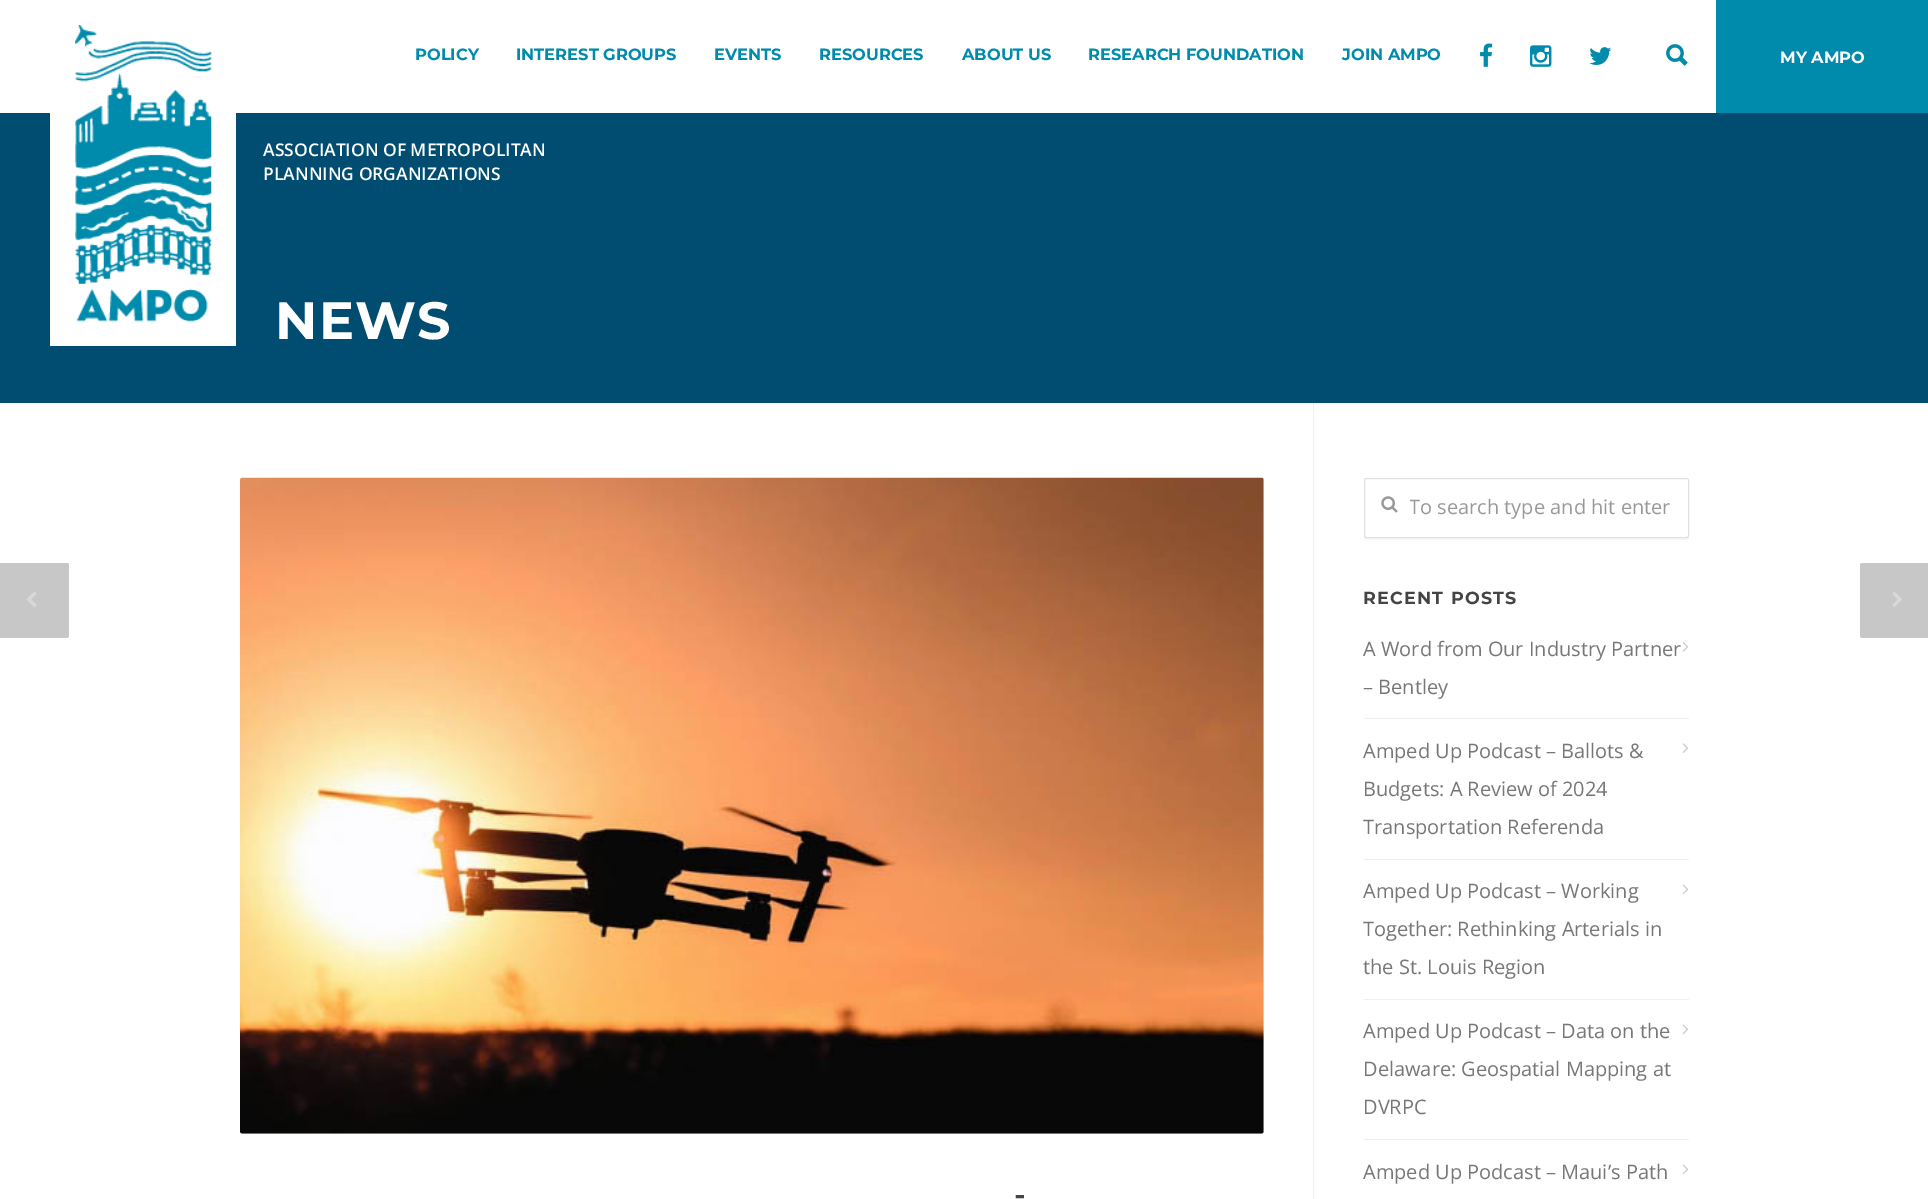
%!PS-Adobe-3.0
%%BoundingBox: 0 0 1928 1199
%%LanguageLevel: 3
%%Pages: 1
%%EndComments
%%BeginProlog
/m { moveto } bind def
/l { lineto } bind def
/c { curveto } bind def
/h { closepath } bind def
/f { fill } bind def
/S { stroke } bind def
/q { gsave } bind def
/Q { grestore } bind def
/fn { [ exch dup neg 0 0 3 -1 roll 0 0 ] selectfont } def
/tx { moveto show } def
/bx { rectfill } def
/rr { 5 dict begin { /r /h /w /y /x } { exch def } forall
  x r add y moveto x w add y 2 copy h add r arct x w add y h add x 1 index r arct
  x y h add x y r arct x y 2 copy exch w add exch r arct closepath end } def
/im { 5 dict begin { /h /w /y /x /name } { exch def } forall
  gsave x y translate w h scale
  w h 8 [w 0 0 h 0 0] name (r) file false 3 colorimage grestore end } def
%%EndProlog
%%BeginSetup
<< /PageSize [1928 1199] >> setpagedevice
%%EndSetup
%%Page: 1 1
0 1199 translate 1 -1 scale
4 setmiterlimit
1 setgray
0 0 1928 1199 bx
/Montserrat-Bold 16.25 fn
0 0.541 0.671 setrgbcolor
(POLICY) 415 60 tx
(INTEREST GROUPS) 516 60 tx
(EVENTS) 714 60 tx
(RESOURCES) 819 60 tx
(ABOUT US) 962 60 tx
(RESEARCH FOUNDATION) 1088 60 tx
(JOIN AMPO) 1342 60 tx
(image0.raw) 1480 43 13 24 im
(image1.raw) 1530 45 22 22 im
(image2.raw) 1589 47 23 18 im
(image3.raw) 1666 44 22 22 im
1716 0 212 113 bx
1 setgray
(MY AMPO) 1780 63 tx
0 0.302 0.443 setrgbcolor
0 113 1928 290 bx
1 setgray
50 113 186 233 bx
(image4.raw) 75 25 137 297 im
/OpenSans-SemiBold 17.5 fn
(ASSOCIATION OF METROPOLITAN) 263 156 tx
(PLANNING ORGANIZATIONS) 263 180 tx
/Montserrat-Bold 52.5 fn
275 339 m 1.25 0 (NEWS) ashow
0.937 setgray
1313 403 1 796 bx
0.969 setgray
1364 536 m 1364 538 l 1364 539 1365 540 1366 540 c 1686 540 l 1688 540 1689 539 1689 538 c 1689 481 l 1689 535 l 1689 536 1688 538 1686 538 c 1366 538 l 1365 538 1364 537 1364 536 c h f
1 setgray
1364.5 478.5 324 59 2 rr q f Q
0.882 setgray
S
(image5.raw) 1381 496 17 17 im
q
1410 491 263 33 rectclip
/OpenSans-Regular 20 fn
0.6 setgray
(To search type and hit enter) 1409 514 tx
Q
/Montserrat-Bold 17.5 fn
0.267 setgray
1363 604 m 1.25 0 (RECENT POSTS) ashow
0.937 setgray
1364 718 325 1 bx
/OpenSans-Regular 20 fn
0.467 setgray
(A Word from Our Industry Partner) 1363 656 tx
(– Bentley) 1363 694 tx
(image6.raw) 1682 642 7 10 im
0.937 setgray
1364 859 325 1 bx
0.467 setgray
(Amped Up Podcast – Ballots &) 1363 758 tx
(Budgets: A Review of 2024) 1363 796 tx
(Transportation Referenda) 1363 834 tx
(image7.raw) 1682 743 7 10 im
0.937 setgray
1364 999 325 1 bx
0.467 setgray
(Amped Up Podcast – Working) 1363 898 tx
(Together: Rethinking Arterials in) 1363 936 tx
(the St. Louis Region) 1363 974 tx
(image8.raw) 1682 884 7 11 im
0.937 setgray
1364 1139 325 1 bx
0.467 setgray
(Amped Up Podcast – Data on the) 1363 1038 tx
(Delaware: Geospatial Mapping at) 1363 1076 tx
(DVRPC) 1363 1114 tx
(image8.raw) 1682 1024 7 11 im
(Amped Up Podcast – Maui’s Path) 1363 1179 tx
(image8.raw) 1682 1164 7 11 im
0.78 setgray
-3 563 m 66.5 563 l 68 563 69 564 69 565.5 c 69 635.5 l 69 637 68 638 66.5 638 c -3 638 l h f
(image9.raw) 26 591 11 16 im
1862.5 563 m 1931 563 l 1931 638 l 1862.5 638 l 1861 638 1860 637 1860 635.5 c 1860 565.5 l 1860 564 1861 563 1862.5 563 c h f
(image10.raw) 1892 591 10 16 im
(image11.raw) 240 477 1024 657 im
/Montserrat-SemiBold 30 fn
0.267 setgray
(-) 1014 1205 tx
showpage
%%EOF
